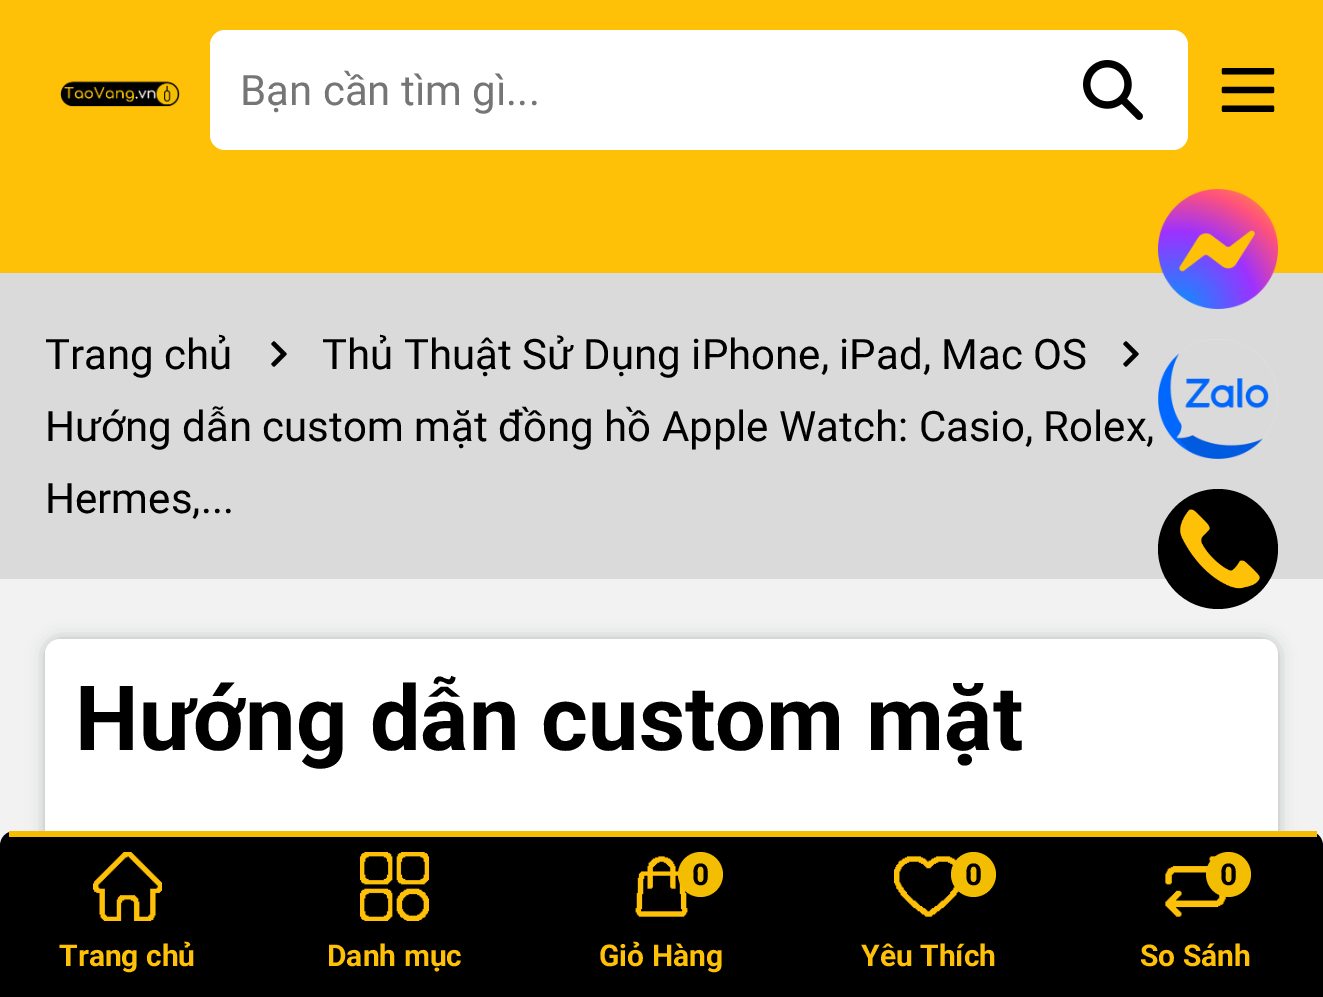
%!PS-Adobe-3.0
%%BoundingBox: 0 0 1323 997
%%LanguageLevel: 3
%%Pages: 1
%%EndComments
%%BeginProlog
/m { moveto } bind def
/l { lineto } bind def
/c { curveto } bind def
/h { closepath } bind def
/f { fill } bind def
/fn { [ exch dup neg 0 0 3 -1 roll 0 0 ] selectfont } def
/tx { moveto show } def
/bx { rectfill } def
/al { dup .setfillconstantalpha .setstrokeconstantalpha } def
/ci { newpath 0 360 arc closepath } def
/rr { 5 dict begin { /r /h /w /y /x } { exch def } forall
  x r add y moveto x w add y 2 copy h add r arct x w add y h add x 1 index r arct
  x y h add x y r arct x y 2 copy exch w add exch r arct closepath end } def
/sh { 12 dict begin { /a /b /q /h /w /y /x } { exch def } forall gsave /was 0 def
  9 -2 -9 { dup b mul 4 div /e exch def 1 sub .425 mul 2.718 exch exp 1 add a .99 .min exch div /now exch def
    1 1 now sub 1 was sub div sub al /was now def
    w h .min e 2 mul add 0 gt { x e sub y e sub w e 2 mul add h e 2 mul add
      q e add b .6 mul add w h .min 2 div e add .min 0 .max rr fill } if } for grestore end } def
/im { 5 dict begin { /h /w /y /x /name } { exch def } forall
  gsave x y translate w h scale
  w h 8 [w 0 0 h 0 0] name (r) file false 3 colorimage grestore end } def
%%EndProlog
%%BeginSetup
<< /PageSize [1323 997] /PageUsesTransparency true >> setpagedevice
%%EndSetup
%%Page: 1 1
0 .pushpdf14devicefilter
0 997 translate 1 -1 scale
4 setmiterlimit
0.949 setgray
0 0 1323 997 bx
1 0.757 0.027 setrgbcolor
0 0 1323 273 bx
(image0.raw) 60 77 120 30 im
1 setgray
210 30 978 120 15 rr f
/Roboto-Regular 42 fn
0.459 setgray
(Bạn cần tìm gì...) 240 105 tx
(image1.raw) 1083 60 60 60 im
(image2.raw) 1221 68 54 44 im
0.855 setgray
0 273 1323 306 bx
0 setgray
(Trang chủ) 45 369 tx
(image3.raw) 271 341 16 26 im
(Thủ Thuật Sử Dụng iPhone, iPad, Mac OS) 322 369 tx
(image3.raw) 1123 341 16 26 im
(Hướng dẫn custom mặt đồng hồ Apple Watch: Casio, Rolex,) 45 441 tx
(Hermes,...) 45 513 tx
0.235 0.251 0.263 setrgbcolor
45 639 1233 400 15 9 0.25 sh
45 639 1233 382 15 3 0.1 sh
1 setgray
45 639 1233 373 15 rr f
/Roboto-Bold 90 fn
0 setgray
(Hướng dẫn custom mặt) 75 750 tx
(image4.raw) 1158 189 120 120 im
(image5.raw) 1158 339 120 120 im
1218 549 60 ci f
(image6.raw) 1180 509 80 80 im
15 831 m 1308 831 l 1316.5 831 1323 837.5 1323 846 c 1323 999 l 0 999 l 0 846 l 0 837.5 6.5 831 15 831 c h f
0.953 0.741 0.004 setrgbcolor
9 831 1308 6 bx
(image7.raw) 93 852 69 69 im
/Roboto-Bold 30 fn
1 0.757 0.027 setrgbcolor
(Trang chủ) 59 966 tx
(image8.raw) 360 852 69 69 im
(Danh mục) 327 966 tx
(image9.raw) 635 856 53 61 im
0.953 0.741 0.004 setrgbcolor
700.5 874.5 22.5 ci f
0 setgray
(0) 692 885 tx
1 0.757 0.027 setrgbcolor
(Giỏ Hàng) 599 966 tx
(image10.raw) 894 856 65 61 im
0.953 0.741 0.004 setrgbcolor
973.5 874.5 22.5 ci f
0 setgray
(0) 965 885 tx
1 0.757 0.027 setrgbcolor
(Yêu Thích) 861 966 tx
(image11.raw) 1165 856 61 61 im
0.953 0.741 0.004 setrgbcolor
1228.5 874.5 22.5 ci f
0 setgray
(0) 1220 885 tx
1 0.757 0.027 setrgbcolor
(So Sánh) 1140 966 tx
.poppdf14devicefilter showpage
%%EOF
